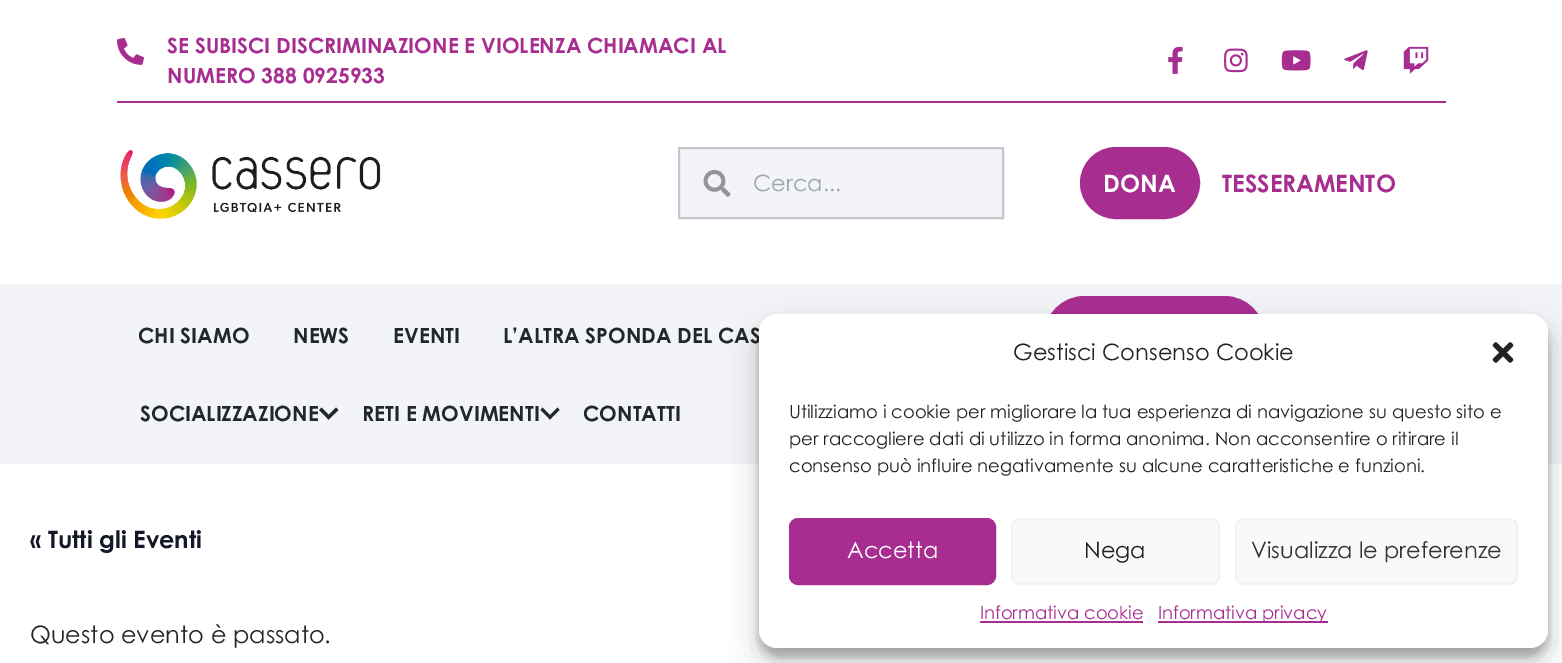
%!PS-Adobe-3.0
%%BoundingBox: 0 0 1562 663
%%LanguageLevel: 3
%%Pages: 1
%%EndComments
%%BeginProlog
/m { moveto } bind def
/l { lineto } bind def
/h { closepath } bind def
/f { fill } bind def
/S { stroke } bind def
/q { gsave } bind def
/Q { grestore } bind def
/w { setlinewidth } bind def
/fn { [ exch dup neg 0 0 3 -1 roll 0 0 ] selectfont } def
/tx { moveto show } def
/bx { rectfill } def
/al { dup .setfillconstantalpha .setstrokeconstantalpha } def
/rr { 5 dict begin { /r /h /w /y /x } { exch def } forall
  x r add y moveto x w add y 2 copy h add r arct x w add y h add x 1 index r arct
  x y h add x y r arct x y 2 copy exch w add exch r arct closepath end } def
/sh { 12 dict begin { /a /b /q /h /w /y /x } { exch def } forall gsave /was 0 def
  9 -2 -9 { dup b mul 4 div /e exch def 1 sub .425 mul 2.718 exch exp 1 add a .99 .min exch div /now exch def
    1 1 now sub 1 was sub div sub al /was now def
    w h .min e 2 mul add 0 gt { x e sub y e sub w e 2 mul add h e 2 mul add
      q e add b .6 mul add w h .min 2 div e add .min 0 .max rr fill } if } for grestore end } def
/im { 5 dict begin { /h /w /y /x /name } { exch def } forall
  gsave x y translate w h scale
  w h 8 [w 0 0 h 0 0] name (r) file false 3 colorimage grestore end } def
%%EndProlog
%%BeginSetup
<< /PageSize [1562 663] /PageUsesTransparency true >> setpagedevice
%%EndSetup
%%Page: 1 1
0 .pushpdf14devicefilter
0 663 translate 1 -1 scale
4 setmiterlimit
1 setgray
0 0 1562 663 bx
0.655 0.18 0.565 setrgbcolor
117 101 1329 2 bx
(image0.raw) 117 37 27 28 im
/CenturyGothic-Bold 21 fn
(SE SUBISCI DISCRIMINAZIONE E VIOLENZA CHIAMACI AL) 167 53 tx
(NUMERO 388 0925933) 167 83 tx
(image1.raw) 1168 46 15 28 im
(image2.raw) 1224 48 24 25 im
(image3.raw) 1281 50 30 21 im
(image4.raw) 1344 50 24 20 im
(image5.raw) 1403 46 26 28 im
(image6.raw) 120 150 261 69 im
0.949 0.957 0.973 setrgbcolor
679 148 m 1003 148 l 1003 218 l 679 218 l h q f Q
0.757 0.78 0.804 setrgbcolor
2 w
S
(image7.raw) 703 169 28 28 im
/CenturyGothic-Regular 22.5 fn
0.627 0.647 0.671 setrgbcolor
(Cerca...) 753 191 tx
0.655 0.18 0.565 setrgbcolor
1081.5 148.5 117 69 34.5 rr q f Q
3 w
S
/CenturyGothic-Bold 24 fn
1 setgray
(DONA) 1103 192 tx
0.655 0.18 0.565 setrgbcolor
(TESSERAMENTO) 1222 192 tx
0.949 0.957 0.973 setrgbcolor
0 284 1562 180 bx
/CenturyGothic-Bold 21 fn
0.129 0.153 0.165 setrgbcolor
(CHI SIAMO) 138 343 tx
(NEWS) 293 343 tx
(EVENTI) 393 343 tx
(L’ALTRA SPONDA DEL CAS) 503 343 tx
0.655 0.18 0.565 setrgbcolor
1045.5 297.5 218 78 39 rr q f Q
S
0.129 0.153 0.165 setrgbcolor
(SOCIALIZZAZIONE) 140 421 tx
336 407.5 m 338.5 410 l 328.5 419.5 l 326.5 417 l h f
321.5 407.5 m 331 417 l 328.5 419.5 l 319 410 l h f
(RETI E MOVIMENTI) 362 421 tx
557.5 407.5 m 559.5 410 l 550 419.5 l 548 417 l h f
542.5 407.5 m 552 417 l 550 419.5 l 540.5 410 l h f
(CONTATTI) 583 421 tx
/CenturyGothic-Bold 24 fn
0.078 0.094 0.153 setrgbcolor
(« Tutti gli Eventi) 30 548 tx
/CenturyGothic-Regular 24 fn
0.129 0.153 0.165 setrgbcolor
(Questo evento è passato.) 30 643 tx
0 setgray
759 323 789 334 18 4.5 0.23 sh
759 329 789 334 18 15 0.19 sh
1 setgray
759 314 789 334 18 rr f
/CenturyGothic-Regular 22.5 fn
0.133 setgray
(Gestisci Consenso Cookie) 1013 360 tx
(image8.raw) 1492 342 22 21 im
/CenturyGothic-Regular 18 fn
(Utilizziamo i cookie per migliorare la tua esperienza di navigazione su questo sito e) 789 418 tx
(per raccogliere dati di utilizzo in forma anonima. Non acconsentire o ritirare il) 789 445 tx
(consenso può influire negativamente su alcune caratteristiche e funzioni.) 789 472 tx
0.655 0.18 0.565 setrgbcolor
790 519 205 65 8 rr q f Q
2 w
S
/CenturyGothic-Regular 22.5 fn
1 setgray
(Accetta) 847 558 tx
0.976 setgray
1012 519 207 65 8 rr q f Q
0.949 setgray
S
0.133 setgray
(Nega) 1084 558 tx
0.976 setgray
1236 519 281 65 8 rr q f Q
0.949 setgray
S
0.2 setgray
(Visualizza le preferenze) 1251 558 tx
/CenturyGothic-Regular 18 fn
0.655 0.18 0.565 setrgbcolor
(Informativa cookie) 980 619 tx
980 621 163 2 bx
1158 621 170 2 bx
(Informativa privacy) 1158 619 tx
.poppdf14devicefilter showpage
%%EOF
